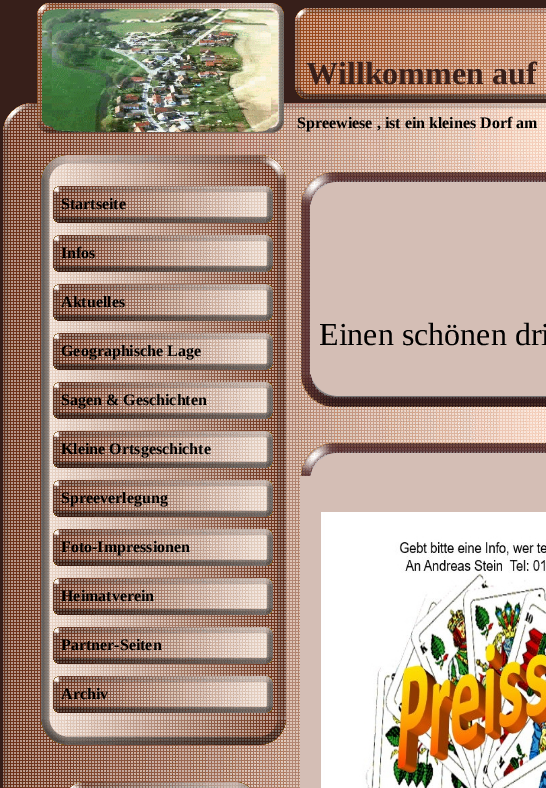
%!PS-Adobe-3.0
%%BoundingBox: 0 0 546 788
%%LanguageLevel: 3
%%Pages: 1
%%EndComments
%%BeginProlog
/fn { [ exch dup neg 0 0 3 -1 roll 0 0 ] selectfont } def
/tx { moveto show } def
/bx { rectfill } def
/im { 5 dict begin { /h /w /y /x /name } { exch def } forall
  gsave x y translate w h scale
  w h 8 [w 0 0 h 0 0] name (r) file false 3 colorimage grestore end } def
%%EndProlog
%%BeginSetup
<< /PageSize [546 788] >> setpagedevice
%%EndSetup
%%Page: 1 1
0 788 translate 1 -1 scale
4 setmiterlimit
0.216 0.122 0.102 setrgbcolor
0 0 546 788 bx
(image0.raw) 3 3 543 151 im
(image1.raw) 51 22 220 110 im
/LiberationSerif-Bold 32 fn
(Willkommen auf) 306 84 tx
/LiberationSerif-Bold 16 fn
0 setgray
(Spreewiese , ist ein kleines Dorf am) 297 128 tx
(image2.raw) 3 154 543 634 im
(image3.raw) 41 155 245 24 im
(image4.raw) 41 179 245 539 im
(image5.raw) 53 186 220 37 im
(Startseite) 61 209 tx
(image6.raw) 53 235 220 37 im
(Infos) 61 258 tx
(image7.raw) 53 284 220 37 im
(Aktuelles) 61 307 tx
(image8.raw) 53 333 220 37 im
(Geographische Lage) 61 356 tx
(image9.raw) 53 382 220 37 im
(Sagen & Geschichten) 61 405 tx
(image10.raw) 53 431 220 37 im
(Kleine Ortsgeschichte) 61 454 tx
(image11.raw) 53 480 220 37 im
(Spreeverlegung) 61 503 tx
(image12.raw) 53 529 220 37 im
(Foto-Impressionen) 61 552 tx
(image13.raw) 53 578 220 37 im
(Heimatverein) 61 601 tx
(image14.raw) 53 627 220 37 im
(Partner-Seiten) 61 650 tx
(image15.raw) 53 676 220 37 im
(Archiv) 61 699 tx
(image16.raw) 41 718 245 27 im
(image17.raw) 70 782 180 6 im
(image18.raw) 301 172 245 33 im
(image19.raw) 301 205 245 169 im
/LiberationSerif-Regular 32 fn
(Einen schönen dri) 319 345 tx
(image20.raw) 301 374 245 33 im
(image21.raw) 301 443 245 33 im
0.831 0.745 0.71 setrgbcolor
300 476 246 312 bx
(image22.raw) 321 512 225 276 im
showpage
%%EOF
